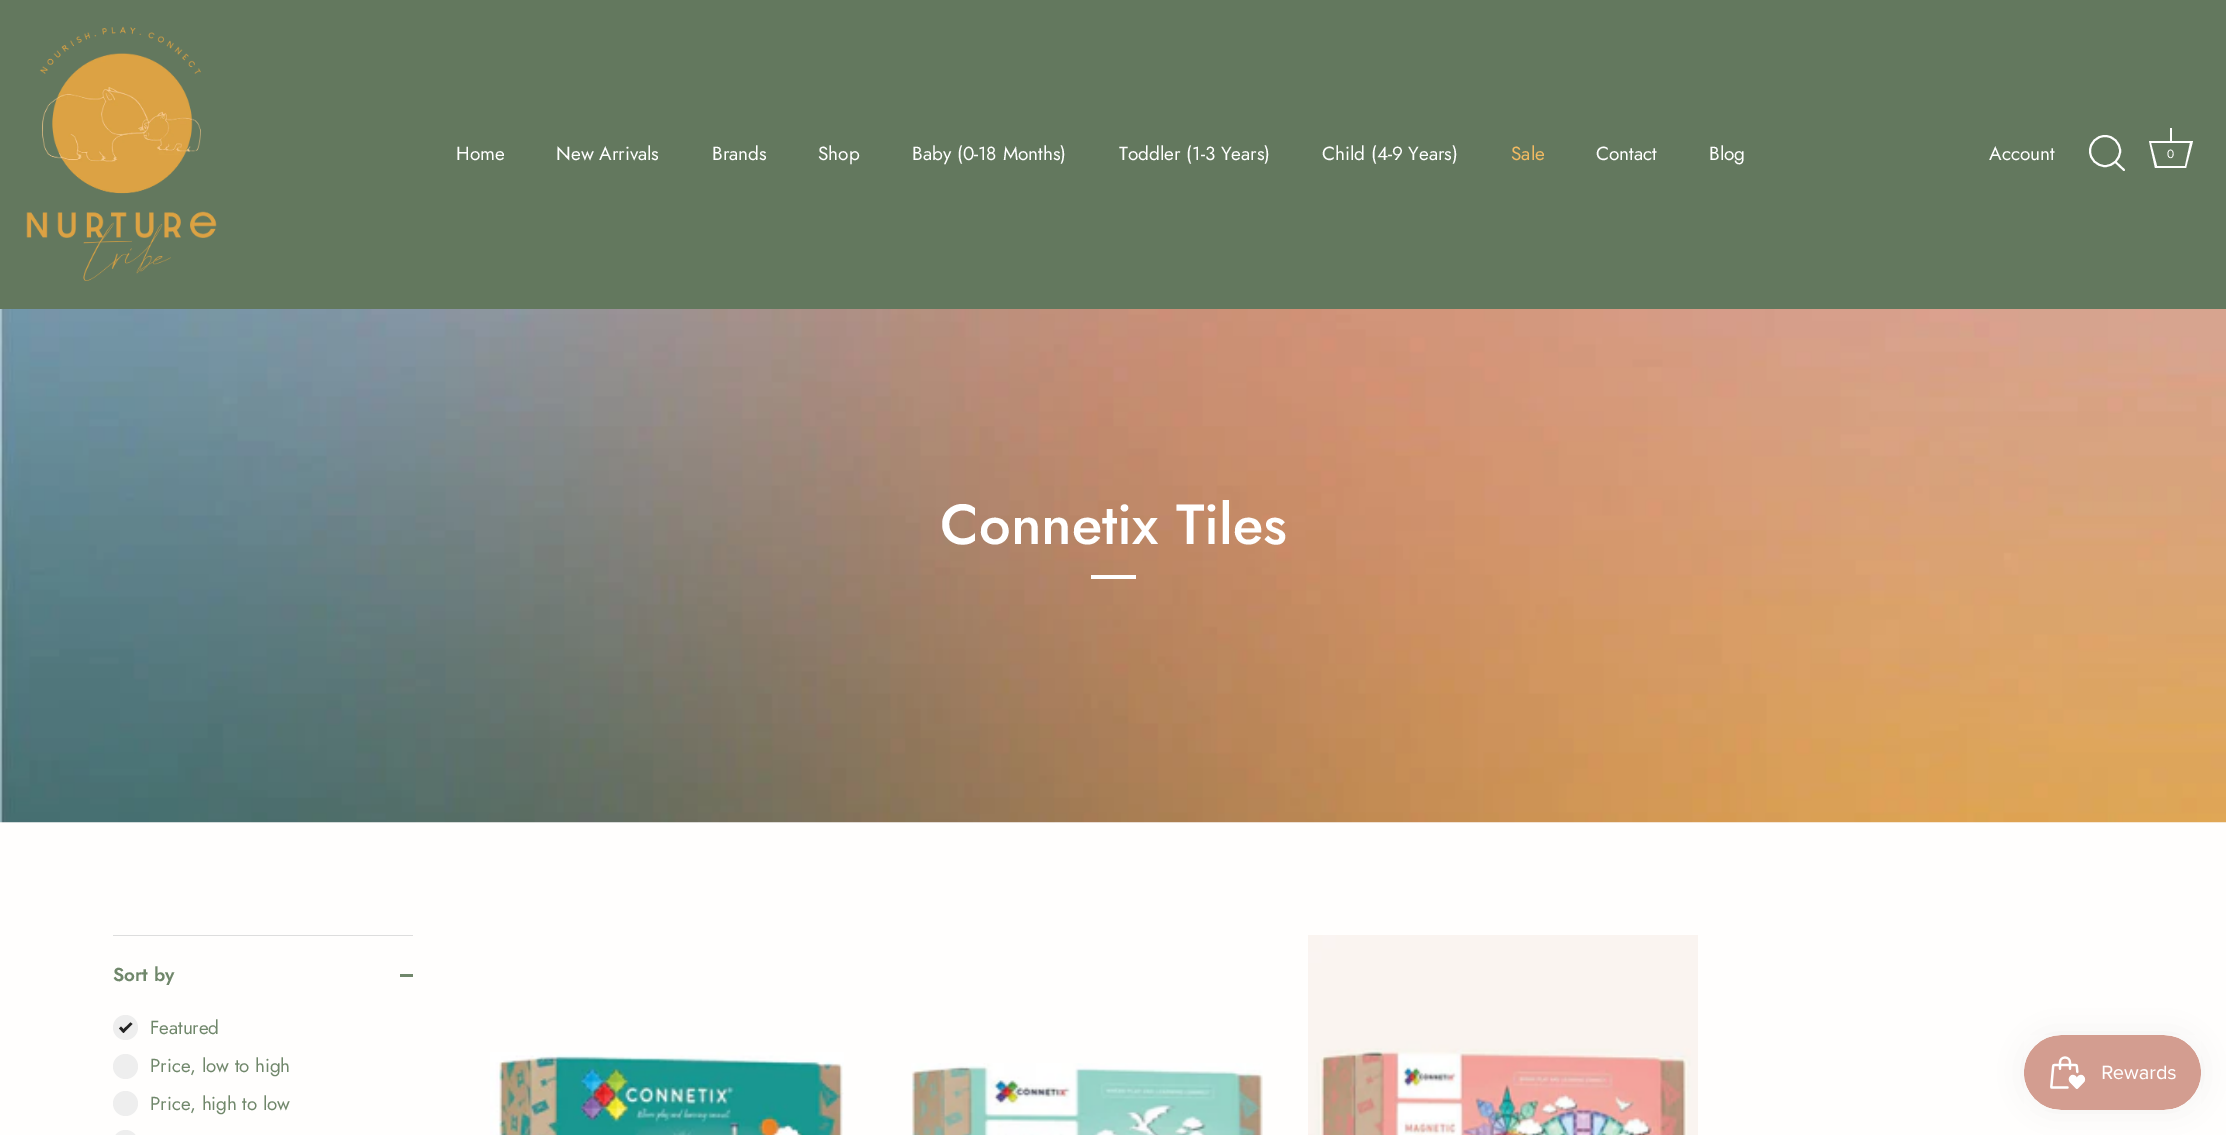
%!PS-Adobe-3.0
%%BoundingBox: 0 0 2226 1135
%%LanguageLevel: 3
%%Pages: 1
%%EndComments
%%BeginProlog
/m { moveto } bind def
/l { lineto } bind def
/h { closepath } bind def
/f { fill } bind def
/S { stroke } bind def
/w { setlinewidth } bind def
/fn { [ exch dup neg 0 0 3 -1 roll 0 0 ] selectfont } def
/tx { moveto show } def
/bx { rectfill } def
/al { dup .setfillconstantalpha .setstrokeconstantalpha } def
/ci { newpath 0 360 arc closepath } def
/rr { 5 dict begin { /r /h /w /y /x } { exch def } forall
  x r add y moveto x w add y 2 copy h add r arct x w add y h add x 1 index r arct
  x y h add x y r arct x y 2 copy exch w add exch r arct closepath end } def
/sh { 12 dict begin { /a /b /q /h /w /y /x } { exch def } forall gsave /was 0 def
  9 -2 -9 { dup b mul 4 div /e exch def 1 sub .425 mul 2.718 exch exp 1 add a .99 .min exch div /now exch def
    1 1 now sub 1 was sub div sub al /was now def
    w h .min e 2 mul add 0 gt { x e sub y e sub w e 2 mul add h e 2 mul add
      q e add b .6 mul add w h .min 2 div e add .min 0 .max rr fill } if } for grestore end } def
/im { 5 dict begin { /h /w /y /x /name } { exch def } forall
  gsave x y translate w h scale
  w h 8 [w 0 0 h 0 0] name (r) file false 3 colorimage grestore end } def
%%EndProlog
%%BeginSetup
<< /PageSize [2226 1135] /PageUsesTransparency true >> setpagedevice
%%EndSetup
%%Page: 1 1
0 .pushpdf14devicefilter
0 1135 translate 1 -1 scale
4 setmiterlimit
1 0.996 0.992 setrgbcolor
0 0 2226 1135 bx
0.388 0.471 0.369 setrgbcolor
0 0 2226 309 bx
(image0.raw) 26 26 191 255 im
/Jost-Regular 19 fn
1 setgray
(Home) 456 160 tx
(New Arrivals) 556 160 tx
(Brands) 712 160 tx
(Shop) 818 160 tx
(Baby \(0-18 Months\)) 912 160 tx
(Toddler \(1-3 Years\)) 1119 160 tx
(Child \(4-9 Years\)) 1322 160 tx
0.945 0.729 0.384 setrgbcolor
(Sale) 1511 160 tx
1 setgray
(Contact) 1596 160 tx
(Blog) 1709 160 tx
(Account) 1989 160 tx
1.9 w
2105 151 15 ci S
1 setlinecap
1 setlinejoin
2124 170 m 2115.5 162 l S
2170 128 2 13 bx
2190 143 m 2185 166 l 2157 166 l 2151 143 l 2190 143 l 2193 141 m 2149 141 l 2155 168 l 2186 168 l h f
/Jost-Regular 12 fn
(0) 2167 158 tx
(image1.raw) 0 309 2226 514 im
/Jost-Medium 56.25 fn
(Connetix Tiles) 940 544 tx
1091 575 45 4 bx
0.867 setgray
113 935 300 1 bx
/Jost-SemiBold 18.75 fn
0.439 0.529 0.42 setrgbcolor
(Sort by) 113 981 tx
400 974 13 3 bx
0.933 setgray
125.5 1027.5 12.5 ci f
/Jost-Regular 18.75 fn
0.439 0.529 0.42 setrgbcolor
(Featured) 150 1034 tx
0.133 setgray
130.5 1022.5 m 132.5 1024 l 123.5 1033 l 121.5 1031 l h f
121 1026.5 m 125 1031 l 123.5 1033 l 119 1028.5 l h f
0.933 setgray
125.5 1066.5 12.5 ci f
0.439 0.529 0.42 setrgbcolor
(Price, low to high) 150 1072 tx
0.933 setgray
125.5 1103.5 12.5 ci f
0.439 0.529 0.42 setrgbcolor
(Price, high to low) 150 1110 tx
0.933 setgray
113 1130 25 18 12.5 rr f
(image2.raw) 490 1052 354 83 im
(image3.raw) 911 1063 352 72 im
(image4.raw) 1308 935 390 200 im
0 setgray
2024 1035 177 75 37.5 15.5 0.05 sh
(image5.raw) 2024 1035 177 75 im
.poppdf14devicefilter showpage
%%EOF
